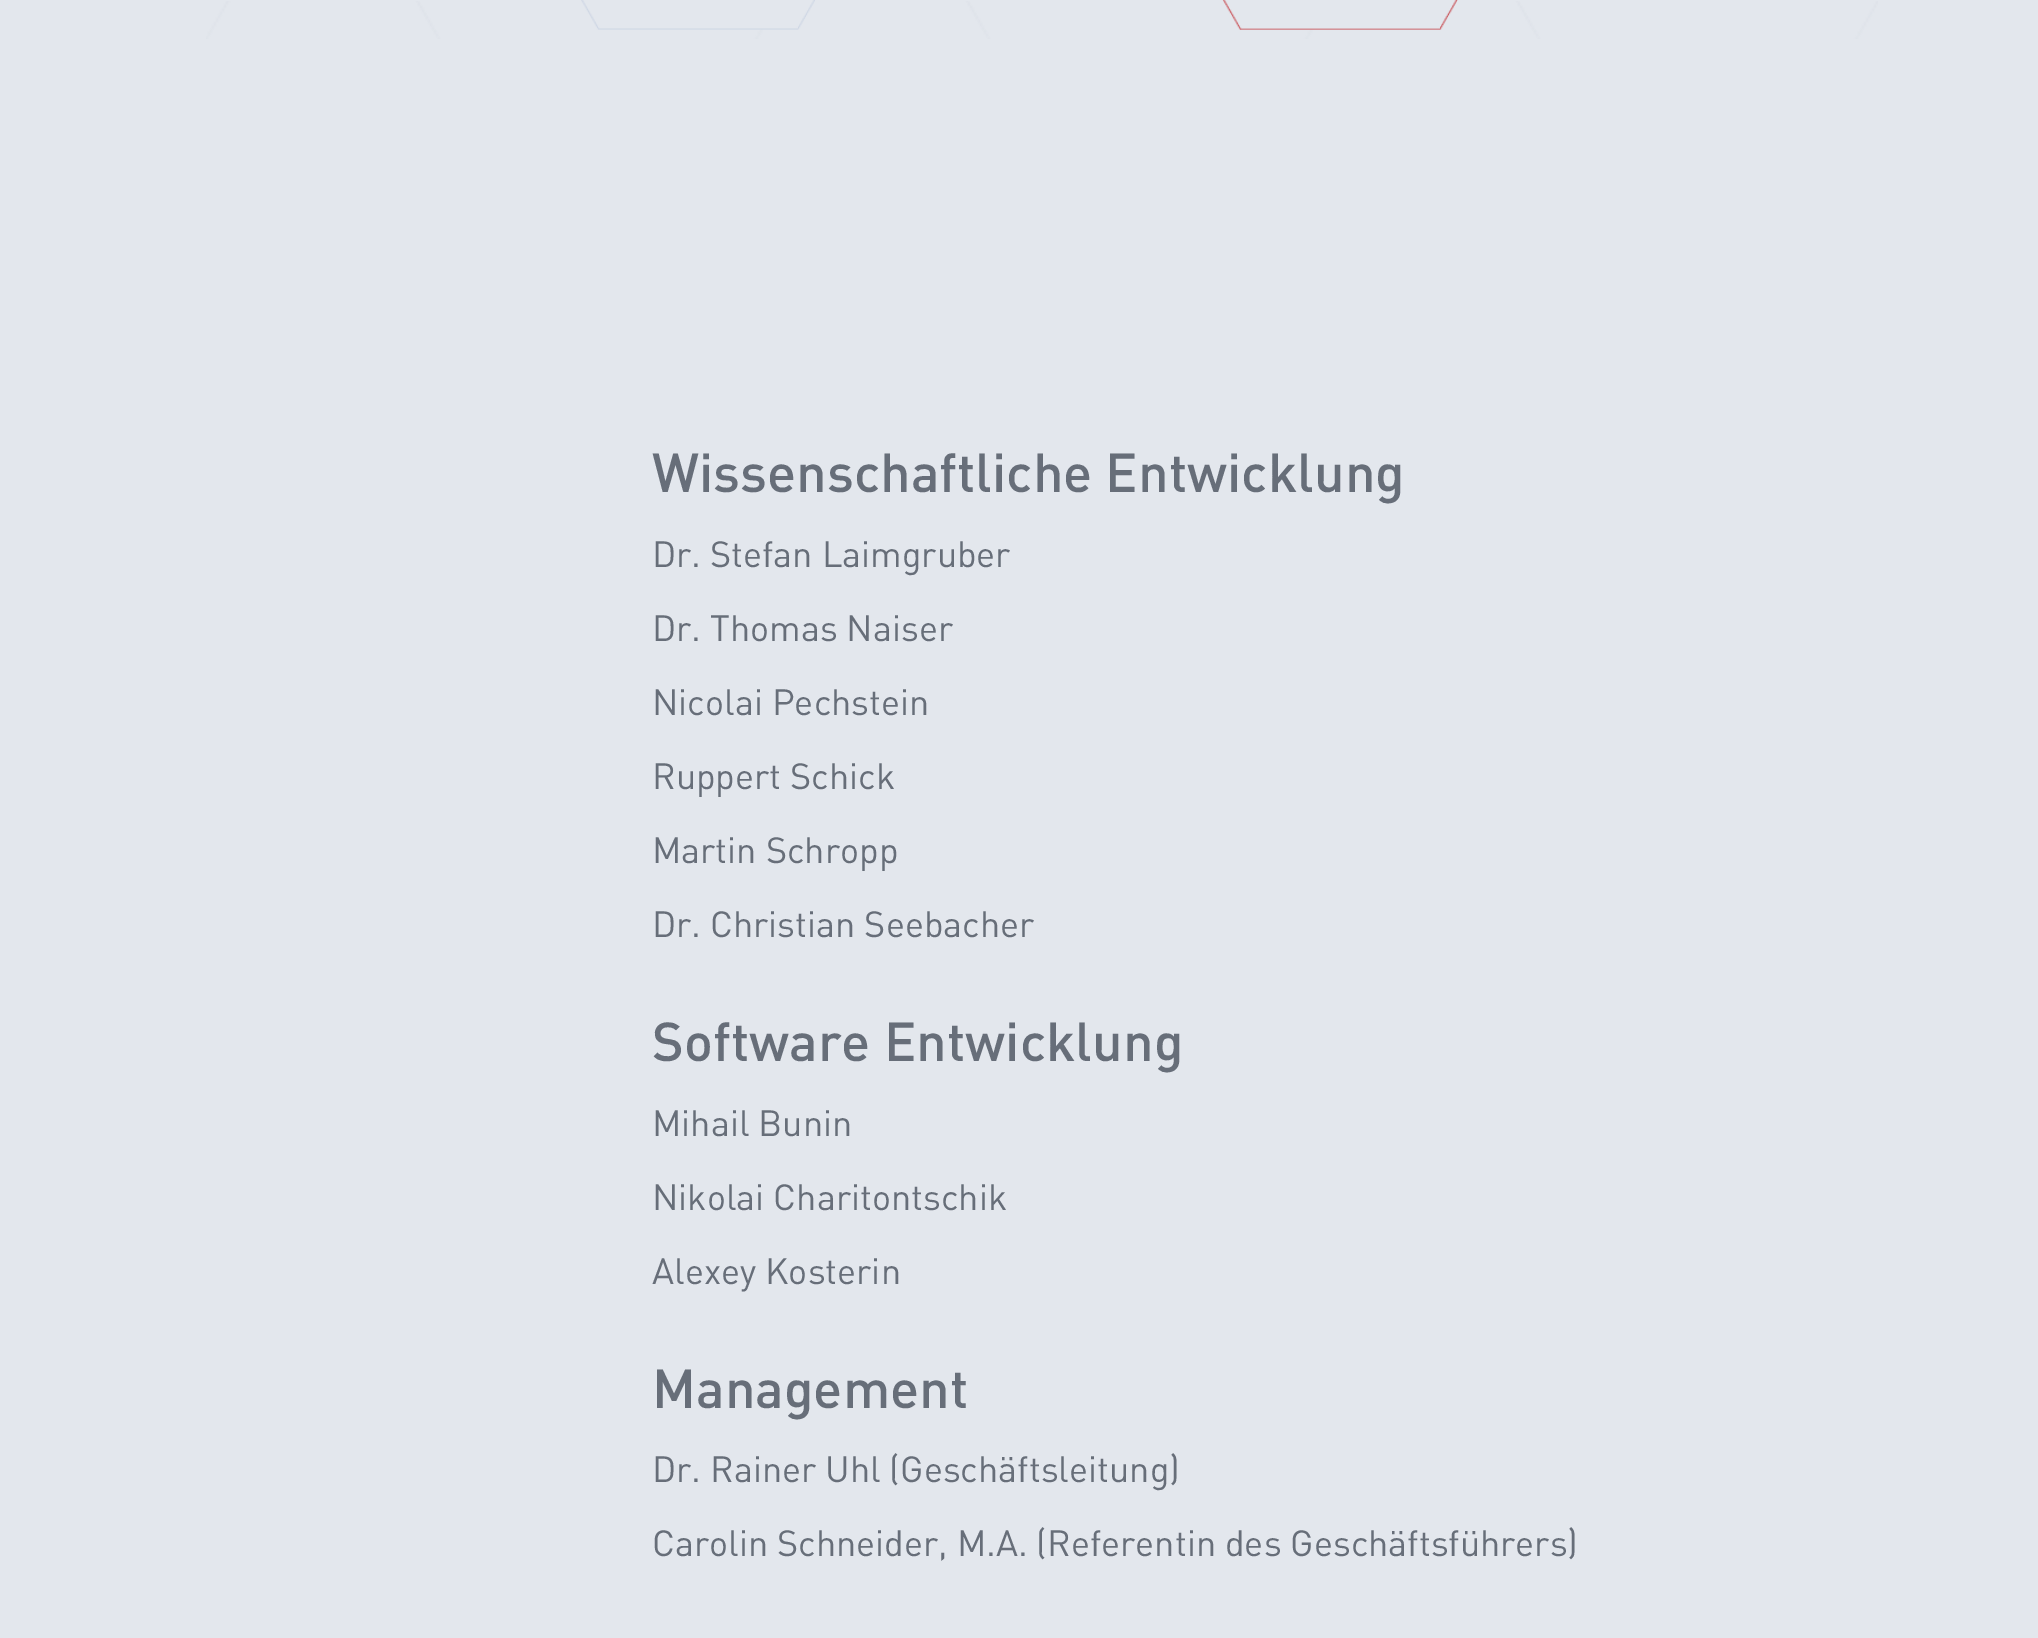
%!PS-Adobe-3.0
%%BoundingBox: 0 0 2038 1638
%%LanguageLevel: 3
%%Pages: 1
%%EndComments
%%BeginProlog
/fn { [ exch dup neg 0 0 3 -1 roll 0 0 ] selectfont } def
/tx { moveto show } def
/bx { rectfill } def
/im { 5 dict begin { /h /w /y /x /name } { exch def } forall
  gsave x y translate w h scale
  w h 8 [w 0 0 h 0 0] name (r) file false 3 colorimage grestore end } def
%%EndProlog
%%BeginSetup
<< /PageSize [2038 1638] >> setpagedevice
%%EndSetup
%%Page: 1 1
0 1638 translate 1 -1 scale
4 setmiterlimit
0.89 0.906 0.929 setrgbcolor
0 0 2038 1638 bx
(image0.raw) 206 1 1672 38 im
(image1.raw) 581 0 234 30 im
(image2.raw) 1222 0 236 30 im
/DIN-Medium 54 fn
0.404 0.431 0.475 setrgbcolor
(Wissenschaftliche Entwicklung) 652 492 tx
/DIN-Regular 36 fn
(Dr. Stefan Laimgruber) 652 567 tx
(Dr. Thomas Naiser) 652 641 tx
(Nicolai Pechstein) 652 715 tx
(Ruppert Schick) 652 789 tx
(Martin Schropp) 652 863 tx
(Dr. Christian Seebacher) 652 937 tx
/DIN-Medium 54 fn
(Software Entwicklung) 652 1061 tx
/DIN-Regular 36 fn
(Mihail Bunin) 652 1136 tx
(Nikolai Charitontschik) 652 1210 tx
(Alexey Kosterin) 652 1284 tx
/DIN-Medium 54 fn
(Management) 652 1408 tx
/DIN-Regular 36 fn
(Dr. Rainer Uhl \(Geschäftsleitung\)) 652 1482 tx
(Carolin Schneider, M.A. \(Referentin des Geschäftsführers\)) 652 1556 tx
showpage
%%EOF
